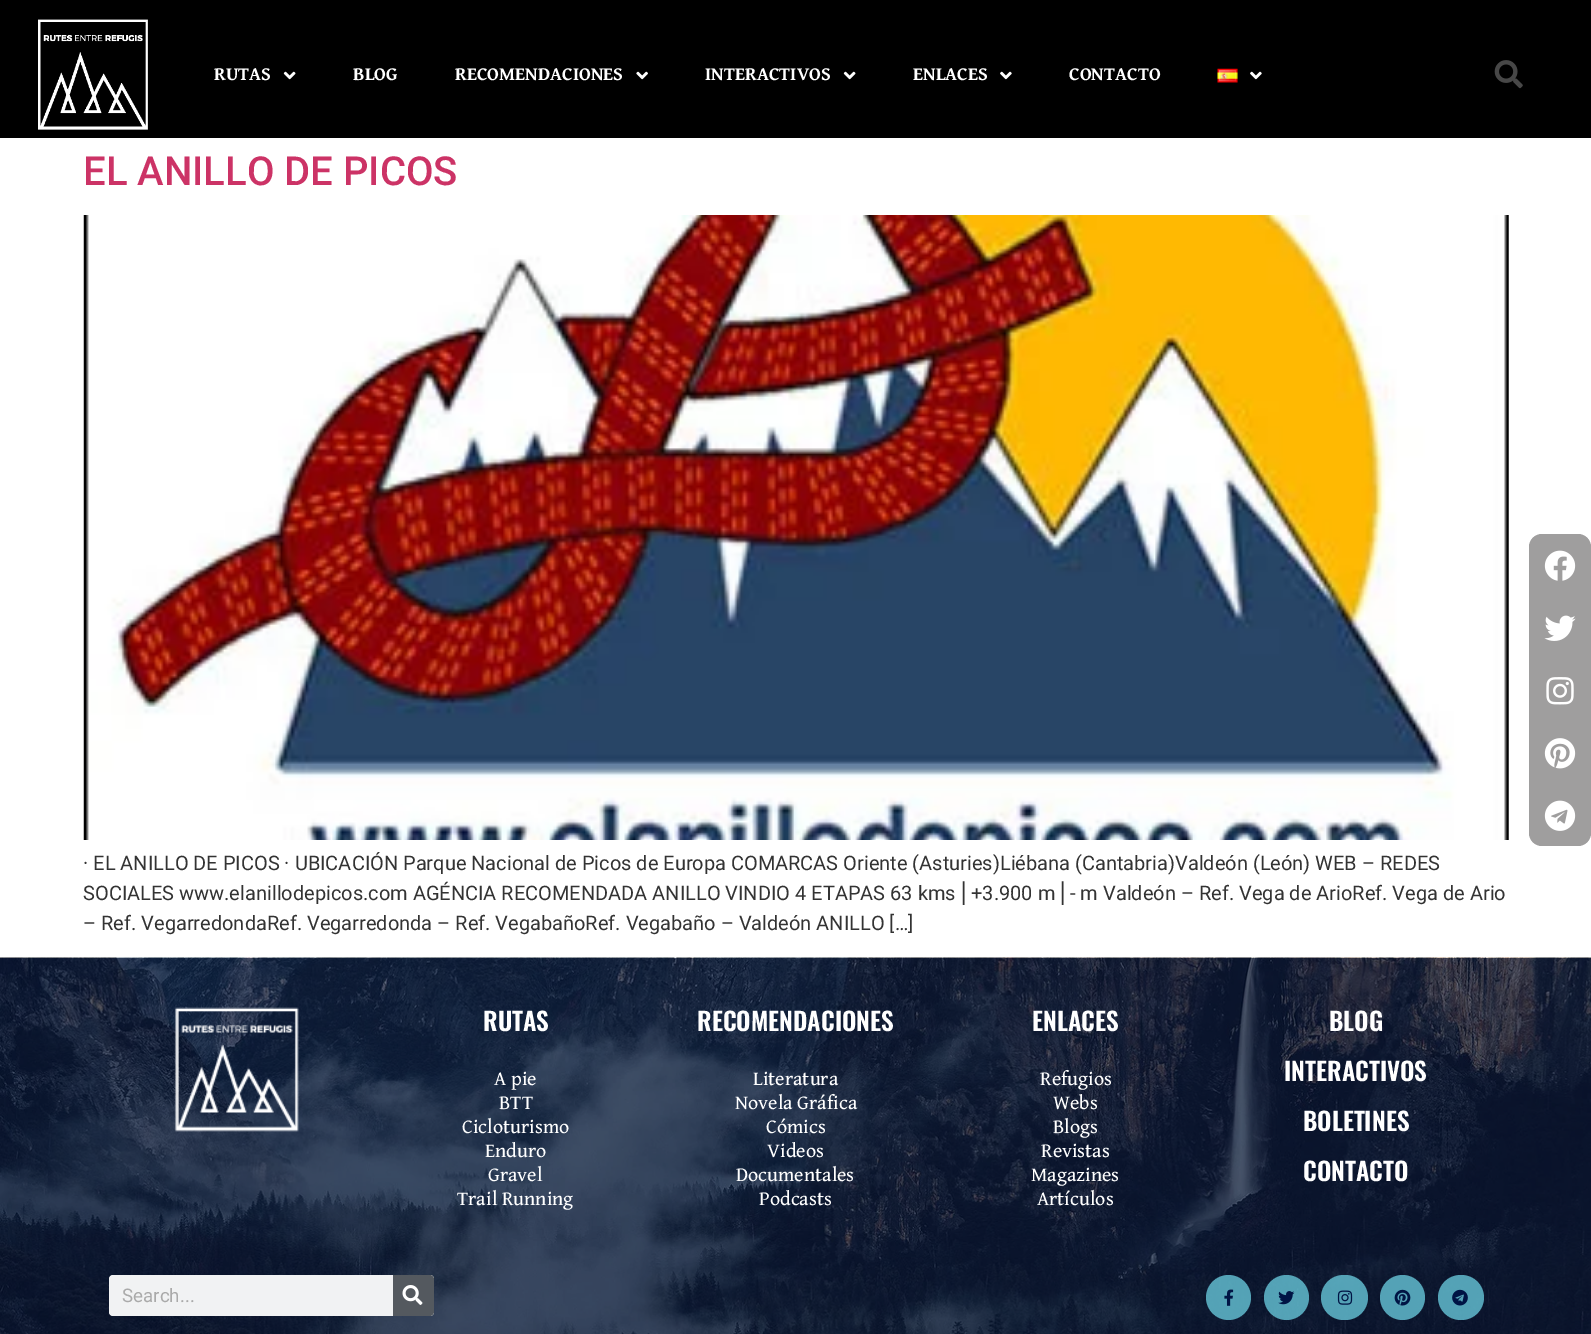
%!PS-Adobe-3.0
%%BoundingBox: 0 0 1591 1334
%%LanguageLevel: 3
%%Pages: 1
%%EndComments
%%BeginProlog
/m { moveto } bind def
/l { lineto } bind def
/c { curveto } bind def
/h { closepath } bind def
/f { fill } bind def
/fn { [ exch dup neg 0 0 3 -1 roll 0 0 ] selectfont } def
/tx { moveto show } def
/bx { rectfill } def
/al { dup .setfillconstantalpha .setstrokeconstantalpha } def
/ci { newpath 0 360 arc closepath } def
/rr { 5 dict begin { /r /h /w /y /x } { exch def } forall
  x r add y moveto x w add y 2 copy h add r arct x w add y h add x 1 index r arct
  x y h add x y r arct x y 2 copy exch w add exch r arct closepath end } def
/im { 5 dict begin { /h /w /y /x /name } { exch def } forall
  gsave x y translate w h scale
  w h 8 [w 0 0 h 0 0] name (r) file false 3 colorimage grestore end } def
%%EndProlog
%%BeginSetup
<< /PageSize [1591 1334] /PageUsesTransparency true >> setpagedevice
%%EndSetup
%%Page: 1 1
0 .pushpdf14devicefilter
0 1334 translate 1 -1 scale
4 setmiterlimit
1 setgray
0 0 1591 1334 bx
0 setgray
0 0 1591 138 bx
(image0.raw) 38 19 110 111 im
/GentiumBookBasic-Bold 18.75 fn
1 setgray
(RUTAS) 214 80 tx
(image1.raw) 283 71 13 9 im
(BLOG) 353 80 tx
(RECOMENDACIONES) 455 80 tx
(image2.raw) 636 71 12 9 im
(INTERACTIVOS) 705 80 tx
(image1.raw) 843 71 13 9 im
(ENLACES) 913 80 tx
(image3.raw) 1000 71 12 9 im
(CONTACTO) 1069 80 tx
(image4.raw) 1217 68 21 15 im
(image3.raw) 1250 71 12 9 im
(image5.raw) 1494 60 29 29 im
/Roboto-Medium 40 fn
0.8 0.2 0.4 setrgbcolor
(EL ANILLO DE PICOS) 83 185 tx
(image6.raw) 83 215 1426 625 im
/Roboto-Regular 20 fn
0.2 setgray
(· EL ANILLO DE PICOS · UBICACIÓN Parque Nacional de Picos de Europa COMARCAS Oriente \(Asturies\)Liébana \(Cantabria\)Valdeón \(León\) WEB – REDES) 83 870 tx
(SOCIALES www.elanillodepicos.com AGÉNCIA RECOMENDADA ANILLO VINDIO 4 ETAPAS 63 kms) 83 900 tx
/DejaVuSans-Regular 20 fn
(⎜) 961 900 tx
/Roboto-Regular 20 fn
(+3.900 m) 971 900 tx
/DejaVuSans-Regular 20 fn
(⎜) 1060 900 tx
/Roboto-Regular 20 fn
(- m Valdeón – Ref. Vega de ArioRef. Vega de Ario) 1070 900 tx
(– Ref. VegarredondaRef. Vegarredonda – Ref. VegabañoRef. Vegabaño – Valdeón ANILLO […]) 83 930 tx
(image7.raw) 0 957 1591 377 im
0.624 0.62 0.62 setrgbcolor
1529 534 62 312 13 rr f
(image8.raw) 1544 550 32 31 im
(image9.raw) 1544 615 32 26 im
(image10.raw) 1546 677 28 28 im
(image11.raw) 1544 738 32 31 im
(image12.raw) 1544 800 32 31 im
(image13.raw) 174 1007 125 125 im
/Oswald-SemiBold 25 fn
1 setgray
(RUTAS) 483 1031 tx
/GentiumBookBasic-Regular 20 fn
(A pie) 494 1085 tx
(BTT) 499 1109 tx
(Cicloturismo) 462 1133 tx
(Enduro) 485 1157 tx
(Gravel) 488 1181 tx
(Trail Running) 457 1205 tx
/Oswald-SemiBold 25 fn
(RECOMENDACIONES) 697 1031 tx
/GentiumBookBasic-Regular 20 fn
(Literatura) 753 1085 tx
(Novela Gráfica) 735 1109 tx
(Cómics) 766 1133 tx
(Videos) 767 1157 tx
(Documentales) 736 1181 tx
(Podcasts) 759 1205 tx
/Oswald-SemiBold 25 fn
(ENLACES) 1032 1031 tx
/GentiumBookBasic-Regular 20 fn
(Refugios) 1040 1085 tx
(Webs) 1053 1109 tx
(Blogs) 1053 1133 tx
(Revistas) 1041 1157 tx
(Magazines) 1031 1181 tx
(Artículos) 1037 1205 tx
/Oswald-SemiBold 25 fn
(BLOG) 1329 1031 tx
(INTERACTIVOS) 1284 1081 tx
(BOLETINES) 1303 1131 tx
(CONTACTO) 1303 1181 tx
0.945 0.949 0.953 setrgbcolor
109 1275 325 41 4 rr f
/Roboto-Regular 18.75 fn
0.667 setgray
(Search...) 122 1302 tx
0.329 0.349 0.373 setrgbcolor
393 1275 m 430 1275 l 432 1275 434 1277 434 1279 c 434 1312 l 434 1314 432 1316 430 1316 c 393 1316 l h f
(image14.raw) 402 1285 21 20 im
0.82 al
0.392 0.757 0.831 setrgbcolor
1228.5 1297.5 22.5 ci f
1 al
(image15.raw) 1224 1289 10 17 im
0.82 al
1286.5 1297.5 22.5 ci f
1 al
(image16.raw) 1278 1291 17 14 im
0.82 al
1321 1275 47 45 22.5 rr f
1 al
(image17.raw) 1337 1290 16 15 im
0.82 al
1402.5 1297.5 22.5 ci f
1 al
(image18.raw) 1394 1289 17 17 im
0.82 al
1438 1275 46 45 22.5 rr f
1 al
(image19.raw) 1452 1289 16 17 im
.poppdf14devicefilter showpage
%%EOF
